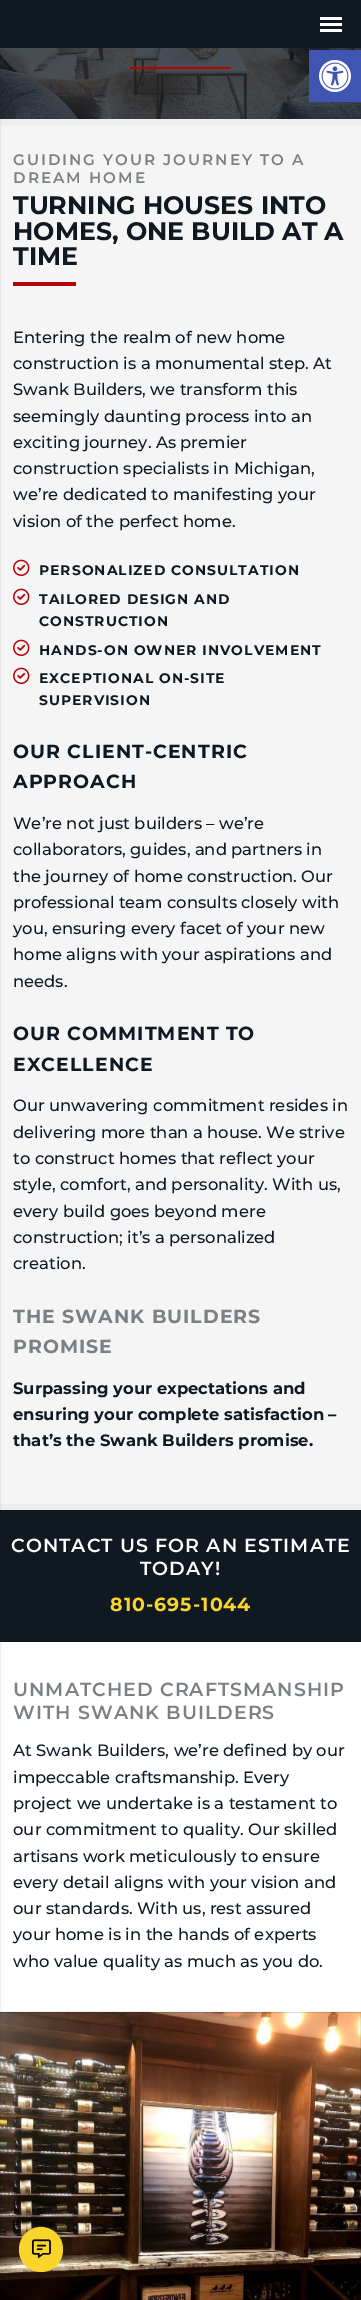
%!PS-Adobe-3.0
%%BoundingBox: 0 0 361 2300
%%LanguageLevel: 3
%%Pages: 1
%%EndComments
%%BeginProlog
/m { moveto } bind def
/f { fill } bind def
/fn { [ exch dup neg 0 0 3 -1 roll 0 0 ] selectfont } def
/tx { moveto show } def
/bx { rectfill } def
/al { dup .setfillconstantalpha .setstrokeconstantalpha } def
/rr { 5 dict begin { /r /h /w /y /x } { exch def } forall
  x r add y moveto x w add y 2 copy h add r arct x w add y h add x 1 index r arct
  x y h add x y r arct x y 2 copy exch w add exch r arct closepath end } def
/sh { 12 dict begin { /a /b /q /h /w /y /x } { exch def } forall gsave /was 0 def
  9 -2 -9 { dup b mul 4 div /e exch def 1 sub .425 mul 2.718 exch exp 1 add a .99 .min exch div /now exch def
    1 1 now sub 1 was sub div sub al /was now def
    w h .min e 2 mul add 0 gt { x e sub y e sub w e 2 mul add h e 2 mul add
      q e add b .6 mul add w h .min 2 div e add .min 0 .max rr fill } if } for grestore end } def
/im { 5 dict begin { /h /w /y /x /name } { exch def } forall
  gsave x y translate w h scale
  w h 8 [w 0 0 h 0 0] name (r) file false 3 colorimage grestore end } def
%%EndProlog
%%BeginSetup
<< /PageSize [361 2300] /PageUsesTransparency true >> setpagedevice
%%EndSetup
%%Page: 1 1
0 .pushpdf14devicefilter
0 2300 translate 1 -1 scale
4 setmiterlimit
0.063 0.098 0.133 setrgbcolor
0 0 361 2300 bx
1 setgray
320 17 22 15 bx
0.063 0.098 0.133 setrgbcolor
320 20 22 3 bx
320 26 22 3 bx
(image1.raw) 0 48 361 71 im
0.961 setgray
0 125 361 1379 bx
0.933 setgray
0 119 361 6 bx
0 1504 361 6 bx
1 setgray
0 1642 361 370 bx
(image3.raw) 0 2011 361 289 im
0 setgray
-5 53 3 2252 0 1.5 1 sh
0.251 0.329 0.698 setrgbcolor
309 50 52 52 bx
(image0.raw) 319 60 32 32 im
0.714 0 0.02 setrgbcolor
130 67 101 2 bx
/Montserrat-SemiBold 15.2 fn
0.486 0.502 0.514 setrgbcolor
13 165 m 2 0 (GUIDING YOUR JOURNEY TO A) ashow
13 183 m 2 0 (DREAM HOME) ashow
/Montserrat-Bold 25.25 fn
0.063 0.098 0.133 setrgbcolor
(TURNING HOUSES INTO) 13 214 tx
(HOMES, ONE BUILD AT A) 13 240 tx
(TIME) 13 265 tx
0.714 0 0.02 setrgbcolor
13 282 63 4 bx
/Montserrat-Medium 16.4 fn
0.063 0.098 0.133 setrgbcolor
(Entering the realm of new home) 13 343 tx
(construction is a monumental step. At) 13 369 tx
(Swank Builders, we transform this) 13 395 tx
(seemingly daunting process into an) 13 422 tx
(exciting journey. As premier) 13 448 tx
(construction specialists in Michigan,) 13 474 tx
(we’re dedicated to manifesting your) 13 500 tx
(vision of the perfect home.) 13 527 tx
(image2.raw) 13 559 17 17 im
/Montserrat-Bold 13.9 fn
39 575 m 1 0 (PERSONALIZED CONSULTATION) ashow
(image2.raw) 13 588 17 17 im
39 604 m 1 0 (TAILORED DESIGN AND) ashow
39 626 m 1 0 (CONSTRUCTION) ashow
(image2.raw) 13 639 17 17 im
39 655 m 1 0 (HANDS-ON OWNER INVOLVEMENT) ashow
(image2.raw) 13 667 17 17 im
39 683 m 1 0 (EXCEPTIONAL ON-SITE) ashow
39 705 m 1 0 (SUPERVISION) ashow
/Montserrat-Bold 19 fn
13 758 m 1 0 (OUR CLIENT-CENTRIC) ashow
13 788 m 1 0 (APPROACH) ashow
/Montserrat-Medium 16.4 fn
(We’re not just builders – we’re) 13 829 tx
(collaborators, guides, and partners in) 13 855 tx
(the journey of home construction. Our) 13 882 tx
(professional team consults closely with) 13 908 tx
(you, ensuring every facet of your new) 13 934 tx
(home aligns with your aspirations and) 13 960 tx
(needs.) 13 987 tx
/Montserrat-Bold 19 fn
13 1040 m 1 0 (OUR COMMITMENT TO) ashow
13 1071 m 1 0 (EXCELLENCE) ashow
/Montserrat-Medium 16.4 fn
(Our unwavering commitment resides in) 13 1111 tx
(delivering more than a house. We strive) 13 1138 tx
(to construct homes that reflect your) 13 1164 tx
(style, comfort, and personality. With us,) 13 1190 tx
(every build goes beyond mere) 13 1217 tx
(construction; it’s a personalized) 13 1243 tx
(creation.) 13 1269 tx
/Montserrat-Bold 19 fn
0.486 0.502 0.514 setrgbcolor
13 1323 m 1 0 (THE SWANK BUILDERS) ashow
13 1353 m 1 0 (PROMISE) ashow
/Montserrat-Bold 16.4 fn
0.063 0.098 0.133 setrgbcolor
(Surpassing your expectations and) 13 1394 tx
(ensuring your complete satisfaction –) 13 1420 tx
(that’s the Swank Builders promise.) 13 1446 tx
/Montserrat-SemiBold 19 fn
1 setgray
11 1552 m 1 0 (CONTACT US FOR AN ESTIMATE) ashow
140 1575 m 1 0 (TODAY!) ashow
/Montserrat-Bold 19 fn
0.976 0.831 0.169 setrgbcolor
110 1611 m 1 0 (810-695-1044) ashow
/Montserrat-SemiBold 19 fn
0.486 0.502 0.514 setrgbcolor
13 1696 m 1 0 (UNMATCHED CRAFTSMANSHIP) ashow
13 1719 m 1 0 (WITH SWANK BUILDERS) ashow
/Montserrat-Medium 16.4 fn
0.063 0.098 0.133 setrgbcolor
(At Swank Builders, we’re defined by our) 13 1756 tx
(impeccable craftsmanship. Every) 13 1783 tx
(project we undertake is a testament to) 13 1809 tx
(our commitment to quality. Our skilled) 13 1835 tx
(artisans work meticulously to ensure) 13 1862 tx
(every detail aligns with your vision and) 13 1888 tx
(our standards. With us, rest assured) 13 1914 tx
(your home is in the hands of experts) 13 1940 tx
(who value quality as much as you do.) 13 1967 tx
0.976 0.831 0.169 setrgbcolor
19 2227 44 45 22 rr f
(image4.raw) 31 2239 20 20 im
.poppdf14devicefilter showpage
%%EOF
